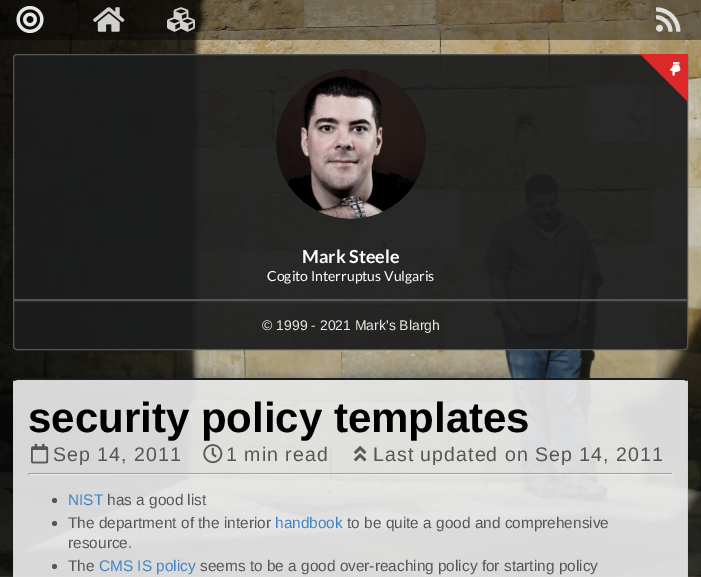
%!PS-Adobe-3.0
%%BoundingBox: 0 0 701 577
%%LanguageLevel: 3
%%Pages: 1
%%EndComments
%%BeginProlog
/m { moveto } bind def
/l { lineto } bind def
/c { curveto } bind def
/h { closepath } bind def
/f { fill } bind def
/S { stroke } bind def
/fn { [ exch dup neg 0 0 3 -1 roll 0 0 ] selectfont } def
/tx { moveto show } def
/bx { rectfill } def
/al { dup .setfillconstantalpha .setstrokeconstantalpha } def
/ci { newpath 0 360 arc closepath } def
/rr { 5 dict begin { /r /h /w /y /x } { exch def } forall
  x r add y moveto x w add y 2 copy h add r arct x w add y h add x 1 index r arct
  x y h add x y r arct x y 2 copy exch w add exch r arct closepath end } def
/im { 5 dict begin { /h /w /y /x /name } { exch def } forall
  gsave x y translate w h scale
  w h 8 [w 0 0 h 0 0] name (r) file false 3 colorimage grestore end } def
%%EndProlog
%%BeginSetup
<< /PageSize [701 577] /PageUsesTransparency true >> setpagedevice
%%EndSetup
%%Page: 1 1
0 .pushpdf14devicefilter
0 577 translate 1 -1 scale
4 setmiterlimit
1 setgray
0 0 701 577 bx
(image0.raw) 0 0 701 577 im
0.4 al
0 setgray
0 0 701 40 bx
1 al
(image1.raw) 16 5 28 29 im
(image2.raw) 93 7 32 25 im
(image3.raw) 167 7 28 25 im
(image4.raw) 656 7 25 25 im
0.93 al
0.106 0.11 0.114 setrgbcolor
14 54 673 296 4 rr f
1 al
0.333 setgray
17 54.5 m 684 54.5 l 686 54.5 687.5 56 687.5 58 c 687.5 299.5 l 13.5 299.5 l 13.5 58 l 13.5 56 15 54.5 17 54.5 c h S
0.859 0.157 0.157 setrgbcolor
688 54 m 688 102 l 640 54 l h f
(image5.raw) 670 62 11 14 im
(image6.raw) 276 69 150 150 im
/Lato-Bold 18 fn
1 setgray
(Mark Steele) 302 263 tx
/Lato-Regular 14 fn
(Cogito Interruptus Vulgaris) 267 281 tx
0.333 setgray
13.5 300.5 m 687.5 300.5 l 687.5 346 l 687.5 348 686 349.5 684 349.5 c 17 349.5 l 15 349.5 13.5 348 13.5 346 c h S
/LiberationSans-Regular 14 fn
0.914 setgray
(© 1999 - 2021 Mark's Blargh) 262 330 tx
0.91 al
0.925 setgray
17 380 m 684 380 l 686 380 687 381 687 382 c 687 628 l 14 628 l 14 382 l 14 381 15 380 17 380 c h f
1 al
0.106 0.11 0.114 setrgbcolor
17 378 m 16 378 15 379 14 380 c 14 381 l 17 380 l 684 380 l 687 381 l 687 380 l 686 379 685 378 684 378 c h f
0.831 0.831 0.835 setrgbcolor
688 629 m 688 382 l 687 380 l 687 381 l 687 382 l 687 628 l h f
13 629 m 14 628 l 14 382 l 14 381 l 14 380 l 13 382 l h f
/LiberationSans-Bold 42 fn
0 setgray
(security policy templates) 28 432 tx
(image7.raw) 31 443 18 21 im
/LiberationSans-Regular 19.6 fn
0.337 setgray
53 461 m 1 0 (Sep 14, 2011) ashow
(image8.raw) 203 444 20 20 im
226 461 m 1 0 (1 min read) ashow
(image9.raw) 354 446 13 16 im
373 461 m 1 0 (Last updated on Sep 14, 2011) ashow
0.624 setgray
28 473 645 1 bx
0.933 setgray
672 473 1 2 bx
28 474 645 1 bx
0.624 setgray
28 473 1 2 bx
0.337 setgray
54.5 500.5 2.5 ci f
/LiberationSans-Regular 15.4 fn
0.255 0.514 0.769 setrgbcolor
(NIST) 68 505 tx
0.337 setgray
(has a good list) 107 505 tx
0.341 setgray
54.5 523.5 2.5 ci f
0.337 setgray
(The department of the interior) 68 528 tx
0.255 0.514 0.769 setrgbcolor
(handbook) 275 528 tx
0.337 setgray
(to be quite a good and comprehensive) 347 528 tx
(resource.) 68 548 tx
0.341 setgray
54.5 566.5 2.5 ci f
0.337 setgray
(The) 68 571 tx
0.255 0.514 0.769 setrgbcolor
(CMS IS policy) 99 571 tx
0.337 setgray
(seems to be a good over-reaching policy for starting policy) 200 571 tx
.poppdf14devicefilter showpage
%%EOF
